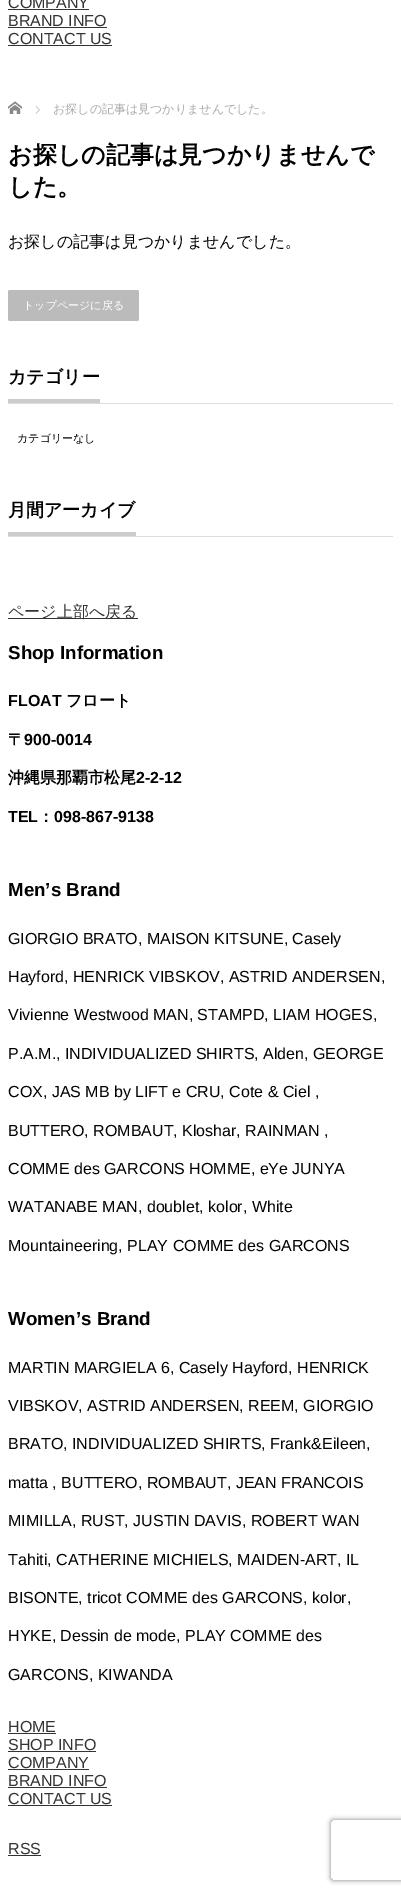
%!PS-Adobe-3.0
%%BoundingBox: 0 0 401 1894
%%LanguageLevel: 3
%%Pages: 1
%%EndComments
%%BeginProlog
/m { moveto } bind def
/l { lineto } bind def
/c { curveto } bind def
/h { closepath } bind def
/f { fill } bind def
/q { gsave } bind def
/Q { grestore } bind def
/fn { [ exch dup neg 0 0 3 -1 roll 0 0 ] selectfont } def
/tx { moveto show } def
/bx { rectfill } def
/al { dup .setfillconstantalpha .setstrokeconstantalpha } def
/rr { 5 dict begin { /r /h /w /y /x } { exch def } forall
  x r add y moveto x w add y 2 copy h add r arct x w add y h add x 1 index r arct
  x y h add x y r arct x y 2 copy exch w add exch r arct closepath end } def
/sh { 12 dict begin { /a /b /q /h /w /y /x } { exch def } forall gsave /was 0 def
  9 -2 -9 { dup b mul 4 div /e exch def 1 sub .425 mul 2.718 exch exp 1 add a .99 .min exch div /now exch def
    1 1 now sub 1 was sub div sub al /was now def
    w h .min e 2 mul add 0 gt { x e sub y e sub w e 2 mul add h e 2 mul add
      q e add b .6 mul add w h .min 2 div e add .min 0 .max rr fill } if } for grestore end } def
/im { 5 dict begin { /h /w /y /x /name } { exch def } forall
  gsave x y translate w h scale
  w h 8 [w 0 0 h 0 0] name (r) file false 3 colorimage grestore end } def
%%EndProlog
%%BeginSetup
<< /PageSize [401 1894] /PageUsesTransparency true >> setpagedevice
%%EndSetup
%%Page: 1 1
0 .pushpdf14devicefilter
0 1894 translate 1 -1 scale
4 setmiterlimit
1 setgray
0 0 401 1894 bx
/LiberationSans-Regular 16 fn
0.2 setgray
(COMPANY) 8 8 tx
8 9 81 1 bx
(BRAND INFO) 8 26 tx
8 27 99 1 bx
(CONTACT US) 8 44 tx
8 45 104 1 bx
(image0.raw) 8 101 14 13 im
(image1.raw) 35 106 5 8 im
/WenQuanYiZenHei-Medium 12 fn
0.667 setgray
(お探しの記事は見つかりませんでした。) 53 113 tx
/WenQuanYiZenHei-Bold 24 fn
0 setgray
(お探しの記事は見つかりませんで) 8 163 tx
(した。) 8 195 tx
/WenQuanYiZenHei-Medium 16 fn
(お探しの記事は見つかりませんでした。) 8 247 tx
0.733 setgray
8 290 131 31 2 rr f
/WenQuanYiZenHei-Medium 11 fn
1 setgray
(トップページに戻る) 23 309 tx
0.867 setgray
8 403 385 1 bx
0.8 setgray
8 399 92 4 bx
/WenQuanYiZenHei-Bold 18 fn
0 setgray
(カテゴリー) 8 383 tx
/WenQuanYiZenHei-Medium 11 fn
(カテゴリーなし) 17 442 tx
0.867 setgray
8 536 385 1 bx
0.8 setgray
8 532 128 4 bx
/WenQuanYiZenHei-Bold 18 fn
0 setgray
(月間アーカイブ) 8 516 tx
0.2 setgray
8 618 130 1 bx
/WenQuanYiZenHei-Medium 16 fn
(ページ上部へ戻る) 8 617 tx
/LiberationSans-Bold 18.75 fn
0 setgray
(Shop Information) 8 659 tx
/LiberationSans-Bold 16 fn
(FLOAT) 8 706 tx
/WenQuanYiZenHei-Bold 16 fn
(フロート) 66 706 tx
(〒) 8 745 tx
/LiberationSans-Bold 16 fn
(900-0014) 24 745 tx
/WenQuanYiZenHei-Bold 16 fn
(沖縄県那覇市松尾) 8 783 tx
/LiberationSans-Bold 16 fn
(2-2-12) 136 783 tx
(TEL) 8 822 tx
/WenQuanYiZenHei-Bold 16 fn
(：) 38 822 tx
/LiberationSans-Bold 16 fn
(098-867-9138) 54 822 tx
/LiberationSans-Bold 18.75 fn
(Men’s Brand) 8 896 tx
/LiberationSans-Regular 16 fn
(GIORGIO BRATO, MAISON KITSUNE, Casely) 8 944 tx
(Hayford, HENRICK VIBSKOV, ASTRID ANDERSEN,) 8 982 tx
(Vivienne Westwood MAN, STAMPD, LIAM HOGES,) 8 1020 tx
(P.A.M., INDIVIDUALIZED SHIRTS, Alden, GEORGE) 8 1059 tx
(COX, JAS MB by LIFT e CRU, Cote & Ciel ,) 8 1097 tx
(BUTTERO, ROMBAUT, Kloshar, RAINMAN ,) 8 1136 tx
(COMME des GARCONS HOMME, eYe JUNYA) 8 1174 tx
(WATANABE MAN, doublet, kolor, White) 8 1212 tx
(Mountaineering, PLAY COMME des GARCONS) 8 1251 tx
/LiberationSans-Bold 18.75 fn
(Women’s Brand) 8 1325 tx
/LiberationSans-Regular 16 fn
(MARTIN MARGIELA 6, Casely Hayford, HENRICK) 8 1373 tx
(VIBSKOV, ASTRID ANDERSEN, REEM, GIORGIO) 8 1411 tx
(BRATO, INDIVIDUALIZED SHIRTS, Frank&Eileen,) 8 1449 tx
(matta , BUTTERO, ROMBAUT, JEAN FRANCOIS) 8 1488 tx
(MIMILLA, RUST, JUSTIN DAVIS, ROBERT WAN) 8 1526 tx
(Tahiti, CATHERINE MICHIELS, MAIDEN-ART, IL) 8 1565 tx
(BISONTE, tricot COMME des GARCONS, kolor,) 8 1603 tx
(HYKE, Dessin de mode, PLAY COMME des) 8 1641 tx
(GARCONS, KIWANDA) 8 1680 tx
0.2 setgray
(HOME) 8 1732 tx
8 1733 48 1 bx
(SHOP INFO) 8 1750 tx
8 1751 88 1 bx
(COMPANY) 8 1768 tx
8 1769 81 1 bx
(BRAND INFO) 8 1786 tx
8 1787 99 1 bx
(CONTACT US) 8 1804 tx
8 1805 104 1 bx
(RSS) 8 1854 tx
8 1855 33 1 bx
q
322 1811 m 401 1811 l 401 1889 l 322 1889 l h 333 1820 m 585 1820 l 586 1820 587 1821 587 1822 c 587 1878 l 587 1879 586 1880 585 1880 c 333 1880 l 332 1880 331 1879 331 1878 c 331 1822 l 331 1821 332 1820 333 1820 c h eoclip newpath
0.502 setgray
331 1820 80 60 2 2.5 1 sh
Q
.poppdf14devicefilter showpage
%%EOF
